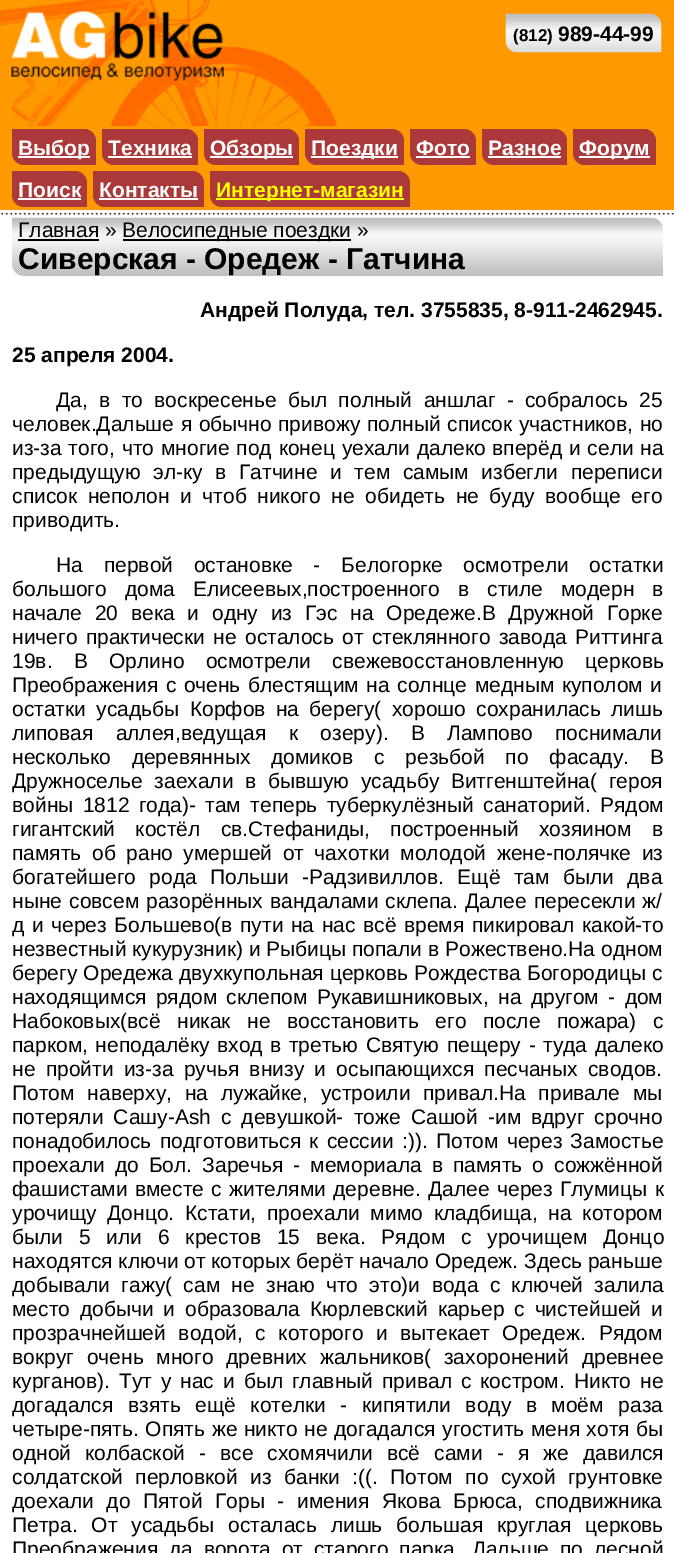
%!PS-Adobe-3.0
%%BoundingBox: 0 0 674 1553
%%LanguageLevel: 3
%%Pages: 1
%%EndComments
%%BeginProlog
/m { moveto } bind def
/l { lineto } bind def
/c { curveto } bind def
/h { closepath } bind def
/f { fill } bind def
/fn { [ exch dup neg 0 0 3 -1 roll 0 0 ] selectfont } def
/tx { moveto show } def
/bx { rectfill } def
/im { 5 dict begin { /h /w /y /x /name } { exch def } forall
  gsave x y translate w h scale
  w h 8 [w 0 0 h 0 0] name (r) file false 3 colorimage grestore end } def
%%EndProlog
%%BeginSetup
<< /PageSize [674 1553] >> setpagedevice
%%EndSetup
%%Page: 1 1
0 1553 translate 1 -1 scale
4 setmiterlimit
1 setgray
0 0 674 1553 bx
1 0.6 0 setrgbcolor
337 0 337 126 bx
(image0.raw) 0 0 337 126 im
(image1.raw) 505 13 157 40 im
/LiberationSans-Bold 17 fn
0 setgray
(\(812\)) 513 41 tx
/LiberationSans-Bold 21 fn
(989-44-99) 558 41 tx
1 0.6 0 setrgbcolor
0 126 674 84 bx
0.671 0.224 0.224 setrgbcolor
12 129 m 84 129 l 90.5 129 96 134.5 96 141 c 96 165 l 24 165 l 17.5 165 12 159.5 12 153 c h f
1 setgray
18 156 72 2 bx
(Выбор) 18 155 tx
0.671 0.224 0.224 setrgbcolor
102 129 m 186 129 l 192.5 129 198 134.5 198 141 c 198 165 l 114 165 l 107.5 165 102 159.5 102 153 c h f
1 setgray
(Техника) 108 155 tx
108 156 84 2 bx
0.671 0.224 0.224 setrgbcolor
204 129 m 287 129 l 293.5 129 299 134.5 299 141 c 299 165 l 216 165 l 209.5 165 204 159.5 204 153 c h f
1 setgray
210 156 83 2 bx
(Обзоры) 210 155 tx
0.671 0.224 0.224 setrgbcolor
305 129 m 392 129 l 398.5 129 404 134.5 404 141 c 404 165 l 317 165 l 310.5 165 305 159.5 305 153 c h f
1 setgray
311 156 87 2 bx
(Поездки) 311 155 tx
0.671 0.224 0.224 setrgbcolor
410 129 m 464 129 l 470.5 129 476 134.5 476 141 c 476 165 l 422 165 l 415.5 165 410 159.5 410 153 c h f
1 setgray
(Фото) 416 155 tx
416 156 54 2 bx
0.671 0.224 0.224 setrgbcolor
482 129 m 555 129 l 561.5 129 567 134.5 567 141 c 567 165 l 494 165 l 487.5 165 482 159.5 482 153 c h f
1 setgray
(Разное) 488 155 tx
488 156 73 2 bx
0.671 0.224 0.224 setrgbcolor
573 129 m 644 129 l 650.5 129 656 134.5 656 141 c 656 165 l 585 165 l 578.5 165 573 159.5 573 153 c h f
1 setgray
579 156 71 2 bx
(Форум) 579 155 tx
0.671 0.224 0.224 setrgbcolor
12 171 m 75 171 l 81.5 171 87 176.5 87 183 c 87 207 l 24 207 l 17.5 207 12 201.5 12 195 c h f
1 setgray
(Поиск) 18 197 tx
18 198 63 2 bx
0.671 0.224 0.224 setrgbcolor
93 171 m 192 171 l 198.5 171 204 176.5 204 183 c 204 207 l 105 207 l 98.5 207 93 201.5 93 195 c h f
1 setgray
(Контакты) 99 197 tx
99 198 99 2 bx
0.671 0.224 0.224 setrgbcolor
210 171 m 398 171 l 404.5 171 410 176.5 410 183 c 410 207 l 222 207 l 215.5 207 210 201.5 210 195 c h f
1 1 0 setrgbcolor
216 198 188 2 bx
(Интернет-магазин) 216 197 tx
(image2.raw) 1 213 673 2 im
(image3.raw) 12 217 651 59 im
/LiberationSans-Regular 21 fn
0 setgray
(Главная ») 18 237 tx
18 239 81 2 bx
123 239 228 2 bx
(Велосипедные поездки ») 122 237 tx
/LiberationSans-Bold 30 fn
(Сиверская - Оредеж - Гатчина) 18 269 tx
/LiberationSans-Bold 21 fn
(Андрей Полуда, тел. 3755835, 8-911-2462945.) 200 317 tx
(25 апреля 2004.) 12 362 tx
/LiberationSans-Regular 21 fn
56 407 m 5.5 0 32 (Да, в то воскресенье был полный аншлаг - собралось 25) widthshow
12 431 m 0.75 0 32 (человек.Дальше я обычно привожу полный список участников, но) widthshow
12 455 m 1 0 32 (из-за того, что многие под конец уехали далеко вперёд и сели на) widthshow
12 479 m 6.75 0 32 (предыдущую эл-ку в Гатчине и тем самым избегли переписи) widthshow
12 503 m 4.75 0 32 (список неполон и чтоб никого не обидеть не буду вообще его) widthshow
(приводить.) 12 527 tx
56 572 m 15 0 32 (На первой остановке - Белогорке осмотрели остатки) widthshow
12 596 m 12.25 0 32 (большого дома Елисеевых,построенного в стиле модерн в) widthshow
12 620 m 7 0 32 (начале 20 века и одну из Гэс на Оредеже.В Дружной Горке) widthshow
12 644 m 2.5 0 32 (ничего практически не осталось от стеклянного завода Риттинга) widthshow
12 668 m 15.5 0 32 (19в. В Орлино осмотрели свежевосстановленную церковь) widthshow
12 692 m 1.75 0 32 (Преображения с очень блестящим на солнце медным куполом и) widthshow
12 716 m 4.5 0 32 (остатки усадьбы Корфов на берегу\( хорошо сохранилась лишь) widthshow
12 740 m 16.5 0 32 (липовая аллея,ведущая к озеру\). В Лампово поснимали) widthshow
12 764 m 15 0 32 (несколько деревянных домиков с резьбой по фасаду. В) widthshow
12 788 m 5.75 0 32 (Дружноселье заехали в бывшую усадьбу Витгенштейна\( героя) widthshow
12 812 m 3.5 0 32 (войны 1812 года\)- там теперь туберкулёзный санаторий. Рядом) widthshow
12 836 m 14.5 0 32 (гигантский костёл св.Стефаниды, построенный хозяином в) widthshow
12 860 m 4.75 0 32 (память об рано умершей от чахотки молодой жене-полячке из) widthshow
12 884 m 7.5 0 32 (богатейшего рода Польши -Радзивиллов. Ещё там были два) widthshow
12 908 m 1.25 0 32 (ныне совсем разорённых вандалами склепа. Далее пересекли ж/) widthshow
12 932 m 1.75 0 32 (д и через Большево\(в пути на нас всё время пикировал какой-то) widthshow
(незвестный кукурузник\) и Рыбицы попали в Рожествено.На одном) 12 956 tx
12 980 m 0.25 0 32 (берегу Оредежа двухкупольная церковь Рождества Богородицы с) widthshow
12 1004 m 3.5 0 32 (находящимся рядом склепом Рукавишниковых, на другом - дом) widthshow
12 1028 m 10.75 0 32 (Набоковых\(всё никак не восстановить его после пожара\) с) widthshow
12 1052 m 1.75 0 32 (парком, неподалёку вход в третью Святую пещеру - туда далеко) widthshow
12 1076 m 4.5 0 32 (не пройти из-за ручья внизу и осыпающихся песчаных сводов.) widthshow
12 1100 m 7 0 32 (Потом наверху, на лужайке, устроили привал.На привале мы) widthshow
12 1124 m 4.25 0 32 (потеряли Сашу-Ash с девушкой- тоже Сашой -им вдруг срочно) widthshow
12 1148 m 2.5 0 32 (понадобилось подготовиться к сессии :\)\). Потом через Замостье) widthshow
12 1172 m 4.25 0 32 (проехали до Бол. Заречья - мемориала в память о сожжённой) widthshow
12 1196 m 1.5 0 32 (фашистами вместе с жителями деревне. Далее через Глумицы к) widthshow
12 1220 m 5 0 32 (урочищу Донцо. Кстати, проехали мимо кладбища, на котором) widthshow
12 1244 m 10 0 32 (были 5 или 6 крестов 15 века. Рядом с урочищем Донцо) widthshow
(находятся ключи от которых берёт начало Оредеж. Здесь раньше) 12 1268 tx
12 1292 m 5.5 0 32 (добывали гажу\( сам не знаю что это\)и вода с ключей залила) widthshow
12 1316 m 4 0 32 (место добычи и образовала Кюрлевский карьер с чистейшей и) widthshow
12 1340 m 6.75 0 32 (прозрачнейшей водой, с которого и вытекает Оредеж. Рядом) widthshow
12 1364 m 7 0 32 (вокруг очень много древних жальников\( захоронений древнее) widthshow
12 1388 m 3.1 0 32 (курганов\). Тут у нас и был главный привал с костром. Никто не) widthshow
12 1412 m 8.75 0 32 (догадался взять ещё котелки - кипятили воду в моём раза) widthshow
12 1436 m 0.75 0 32 (четыре-пять. Опять же никто не догадался угостить меня хотя бы) widthshow
12 1460 m 8.25 0 32 (одной колбаской - все схомячили всё сами - я же давился) widthshow
12 1484 m 6.5 0 32 (солдатской перловкой из банки :\(\(. Потом по сухой грунтовке) widthshow
12 1508 m 6.75 0 32 (доехали до Пятой Горы - имения Якова Брюса, сподвижника) widthshow
12 1532 m 8 0 32 (Петра. От усадьбы осталась лишь большая круглая церковь) widthshow
12 1556 m 5 0 32 (Преображения да ворота от старого парка. Дальше по лесной) widthshow
showpage
%%EOF
